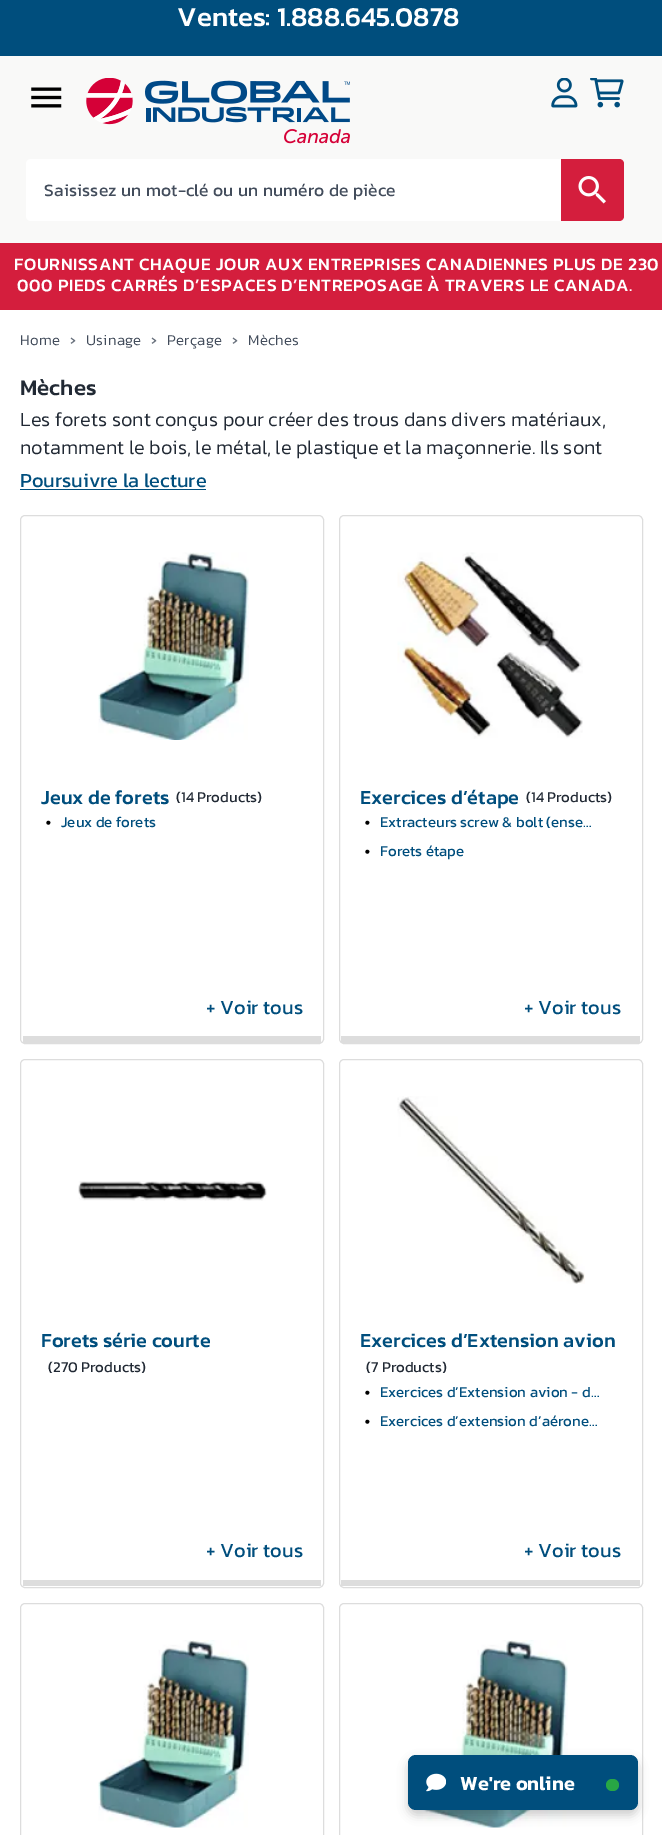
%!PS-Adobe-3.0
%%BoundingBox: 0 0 662 1835
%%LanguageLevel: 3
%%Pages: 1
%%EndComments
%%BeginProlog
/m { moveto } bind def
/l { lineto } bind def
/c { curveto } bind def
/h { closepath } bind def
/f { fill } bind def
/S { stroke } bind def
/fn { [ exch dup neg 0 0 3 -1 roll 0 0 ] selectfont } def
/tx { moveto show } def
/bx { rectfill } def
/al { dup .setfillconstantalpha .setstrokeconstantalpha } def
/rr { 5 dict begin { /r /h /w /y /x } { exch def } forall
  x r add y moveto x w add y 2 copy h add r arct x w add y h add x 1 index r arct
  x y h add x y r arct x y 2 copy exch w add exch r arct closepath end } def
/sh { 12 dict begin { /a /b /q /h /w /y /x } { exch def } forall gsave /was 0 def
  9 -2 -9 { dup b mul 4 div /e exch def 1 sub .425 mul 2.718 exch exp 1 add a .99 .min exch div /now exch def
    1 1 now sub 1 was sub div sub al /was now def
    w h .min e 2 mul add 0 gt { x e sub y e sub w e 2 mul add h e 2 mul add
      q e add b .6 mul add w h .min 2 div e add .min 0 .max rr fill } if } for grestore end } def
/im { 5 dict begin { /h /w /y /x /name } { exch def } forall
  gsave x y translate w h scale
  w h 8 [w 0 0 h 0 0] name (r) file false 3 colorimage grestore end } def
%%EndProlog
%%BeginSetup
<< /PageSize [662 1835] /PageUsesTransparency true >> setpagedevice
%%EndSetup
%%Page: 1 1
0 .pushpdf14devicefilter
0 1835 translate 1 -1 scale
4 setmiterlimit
1 setgray
0 0 662 1835 bx
0 0.306 0.49 setrgbcolor
0 0 662 56 bx
/Kanit-Medium 27.5 fn
1 setgray
(Ventes: 1.888.645.0878) 177 26 tx
0.976 0.976 0.973 setrgbcolor
0 56 662 187 bx
(image0.raw) 31 87 31 21 im
(image1.raw) 86 78 264 66 im
(image2.raw) 551 78 27 30 im
(image3.raw) 590 78 34 30 im
1 setgray
26 159 598 62 5 rr f
/Kanit-Regular 17.5 fn
0.259 0.298 0.357 setrgbcolor
44 196 m 0.15 0 (Saisissez un mot-clé ou un numéro de pièce) ashow
0.831 0.118 0.239 setrgbcolor
561 159 m 619 159 l 622 159 624 161 624 164 c 624 216 l 624 219 622 221 619 221 c 561 221 l h f
(image4.raw) 578 176 28 28 im
0 243 662 67 bx
/Kanit-Medium 17.5 fn
1 setgray
14 270 m 0.62 0 (FOURNISSANT CHAQUE JOUR AUX ENTREPRISES CANADIENNES PLUS DE 230) ashow
17 291 m 0.62 0 (000 PIEDS CARRÉS D’ESPACES D’ENTREPOSAGE À TRAVERS LE CANADA.) ashow
/Kanit-Light 15 fn
0.259 0.298 0.357 setrgbcolor
20 345 m 0.25 0 (Home) ashow
/Kanit-Medium 15 fn
0.408 0.439 0.486 setrgbcolor
70 345 m 0.25 0 (›) ashow
/Kanit-Light 15 fn
0.259 0.298 0.357 setrgbcolor
86 345 m 0.25 0 (Usinage) ashow
/Kanit-Medium 15 fn
0.408 0.439 0.486 setrgbcolor
151 345 m 0.25 0 (›) ashow
/Kanit-Light 15 fn
0.259 0.298 0.357 setrgbcolor
167 345 m 0.25 0 (Perçage) ashow
/Kanit-Medium 15 fn
0.408 0.439 0.486 setrgbcolor
232 345 m 0.25 0 (›) ashow
/Kanit-Light 15 fn
0.259 0.298 0.357 setrgbcolor
248 345 m 0.25 0 (Mèches) ashow
/Kanit-Medium 22.5 fn
0.129 0.161 0.204 setrgbcolor
(Mèches) 20 395 tx
/Kanit-Light 20 fn
(Les forets sont conçus pour créer des trous dans divers matériaux,) 20 426 tx
(notamment le bois, le métal, le plastique et la maçonnerie. Ils sont) 20 454 tx
/Kanit-Regular 20 fn
0 0.306 0.49 setrgbcolor
(Poursuivre la lecture) 20 487 tx
20 489 186 1 bx
0.867 setgray
20.5 515.5 303 528 4.5 rr S
23 1036 298 7 bx
(image5.raw) 98 552 151 188 im
/Kanit-Medium 20 fn
0 0.306 0.49 setrgbcolor
(Jeux de forets) 41 804 tx
/Kanit-Regular 15 fn
0.129 0.161 0.204 setrgbcolor
(\(14 Products\)) 176 802 tx
/Kanit-Bold 15 fn
0 setgray
(•) 46 827 tx
/Kanit-Regular 15 fn
0 0.306 0.49 setrgbcolor
(Jeux de forets) 61 827 tx
/Kanit-Regular 20 fn
(+ Voir tous) 206 1014 tx
0.867 setgray
339.5 515.5 303 528 4.5 rr S
341 1036 299 7 bx
(image6.raw) 397 552 186 187 im
/Kanit-Medium 20 fn
0 0.306 0.49 setrgbcolor
(Exercices d’étape) 360 804 tx
/Kanit-Regular 15 fn
0.129 0.161 0.204 setrgbcolor
(\(14 Products\)) 526 802 tx
/Kanit-Bold 15 fn
0 setgray
(•) 365 827 tx
/Kanit-Regular 15 fn
0 0.306 0.49 setrgbcolor
(Extracteurs screw & bolt \(ense…) 380 827 tx
/Kanit-Bold 15 fn
0 setgray
(•) 365 856 tx
/Kanit-Regular 15 fn
0 0.306 0.49 setrgbcolor
(Forets étape) 380 856 tx
/Kanit-Regular 20 fn
(+ Voir tous) 524 1014 tx
0.867 setgray
20.5 1059.5 303 528 4.5 rr S
23 1580 298 6 bx
(image7.raw) 78 1181 189 20 im
/Kanit-Medium 20 fn
0 0.306 0.49 setrgbcolor
(Forets série courte) 41 1347 tx
/Kanit-Regular 15 fn
0.129 0.161 0.204 setrgbcolor
(\(270 Products\)) 48 1372 tx
/Kanit-Regular 20 fn
0 0.306 0.49 setrgbcolor
(+ Voir tous) 206 1557 tx
0.867 setgray
339.5 1059.5 303 528 4.5 rr S
341 1580 299 6 bx
(image8.raw) 397 1096 188 188 im
/Kanit-Medium 20 fn
0 0.306 0.49 setrgbcolor
(Exercices d’Extension avion) 360 1347 tx
/Kanit-Regular 15 fn
0.129 0.161 0.204 setrgbcolor
(\(7 Products\)) 366 1372 tx
/Kanit-Bold 15 fn
0 setgray
(•) 365 1397 tx
/Kanit-Regular 15 fn
0 0.306 0.49 setrgbcolor
(Exercices d’Extension avion - d…) 380 1397 tx
/Kanit-Bold 15 fn
0 setgray
(•) 365 1426 tx
/Kanit-Regular 15 fn
0 0.306 0.49 setrgbcolor
(Exercices d’extension d’aérone…) 380 1426 tx
/Kanit-Regular 20 fn
(+ Voir tous) 524 1557 tx
0.867 setgray
20.5 1603.5 303 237 4.5 rr S
(image9.raw) 98 1640 151 188 im
339.5 1603.5 303 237 4.5 rr S
(image10.raw) 416 1640 152 188 im
0 setgray
408 1760 230 55 8 5 0.2 sh
0 0.306 0.49 setrgbcolor
408 1755 230 55 8 rr f
(image11.raw) 426 1773 20 19 im
/Kanit-SemiBold 20 fn
1 setgray
(We're online) 460 1790 tx
0.157 0.655 0.271 setrgbcolor
606 1779 13 12 6 rr f
.poppdf14devicefilter showpage
%%EOF
